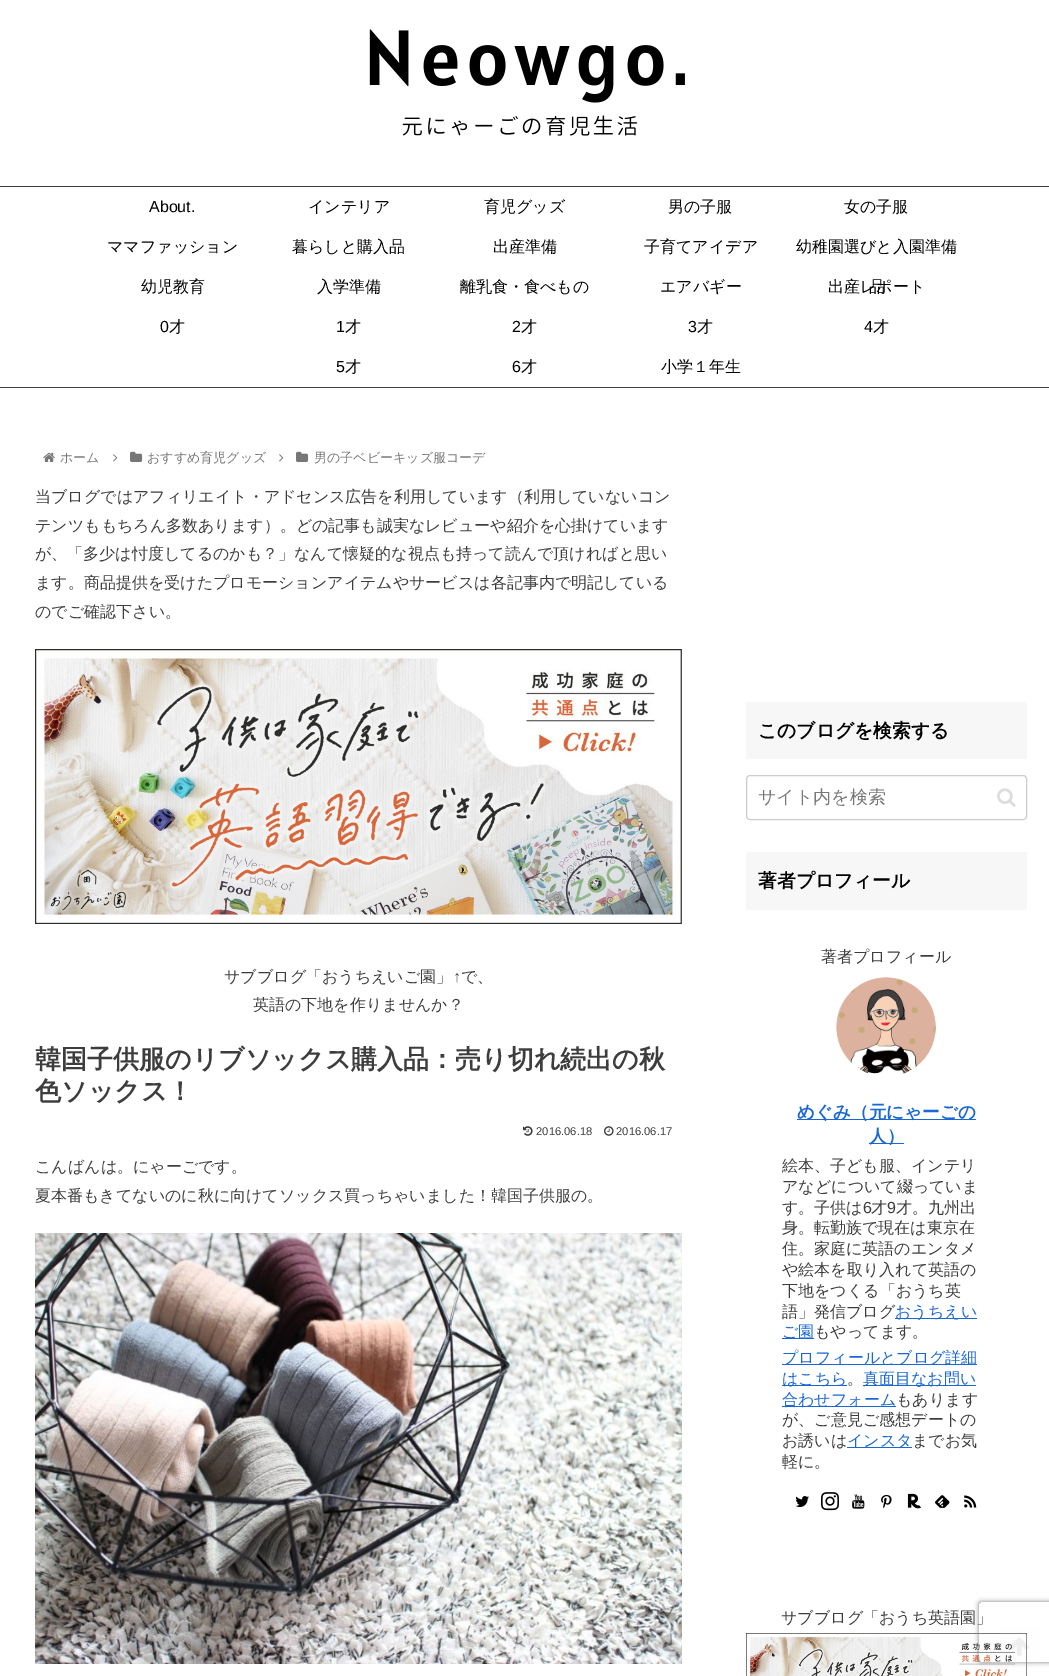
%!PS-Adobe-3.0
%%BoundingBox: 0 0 1049 1676
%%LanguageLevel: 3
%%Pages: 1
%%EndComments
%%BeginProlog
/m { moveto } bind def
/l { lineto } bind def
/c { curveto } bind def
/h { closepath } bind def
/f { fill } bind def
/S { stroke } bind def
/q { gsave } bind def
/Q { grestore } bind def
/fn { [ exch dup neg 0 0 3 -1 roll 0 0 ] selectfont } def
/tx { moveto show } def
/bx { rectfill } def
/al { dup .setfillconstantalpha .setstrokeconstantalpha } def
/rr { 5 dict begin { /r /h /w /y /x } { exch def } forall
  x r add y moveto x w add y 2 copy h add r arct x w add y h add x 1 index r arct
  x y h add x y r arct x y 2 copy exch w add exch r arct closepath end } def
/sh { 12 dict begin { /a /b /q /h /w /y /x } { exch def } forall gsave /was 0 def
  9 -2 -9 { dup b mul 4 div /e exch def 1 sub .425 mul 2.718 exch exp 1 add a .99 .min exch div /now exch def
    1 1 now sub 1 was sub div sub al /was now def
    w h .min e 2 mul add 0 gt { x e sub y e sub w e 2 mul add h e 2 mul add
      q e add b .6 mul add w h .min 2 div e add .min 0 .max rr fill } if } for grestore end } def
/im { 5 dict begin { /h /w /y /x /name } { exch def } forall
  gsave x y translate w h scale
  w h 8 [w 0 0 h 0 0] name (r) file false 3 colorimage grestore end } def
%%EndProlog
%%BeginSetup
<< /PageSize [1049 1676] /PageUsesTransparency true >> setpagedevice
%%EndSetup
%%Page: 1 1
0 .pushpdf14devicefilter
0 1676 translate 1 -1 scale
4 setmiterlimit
1 setgray
0 0 1049 1676 bx
(image0.raw) 369 29 316 107 im
0.239 setgray
0 186 1049 1 bx
0 387 1049 1 bx
/LiberationSans-Regular 16 fn
0 setgray
(About.) 149 212 tx
/WenQuanYiZenHei-Medium 16 fn
(インテリア) 308 212 tx
(育児グッズ) 484 212 tx
(男の子服) 668 212 tx
(女の子服) 844 212 tx
(ママファッション) 107 252 tx
(暮らしと購入品) 292 252 tx
(出産準備) 493 252 tx
(子育てアイデア) 644 252 tx
(幼稚園選びと入園準備) 796 252 tx
(品) 869 292 tx
(幼児教育) 141 292 tx
(入学準備) 317 292 tx
(離乳食・食べもの) 460 292 tx
(エアバギー) 660 292 tx
(出産レポート) 828 292 tx
/LiberationSans-Regular 16 fn
(0) 160 332 tx
/WenQuanYiZenHei-Medium 16 fn
(才) 169 332 tx
/LiberationSans-Regular 16 fn
(1) 336 332 tx
/WenQuanYiZenHei-Medium 16 fn
(才) 345 332 tx
/LiberationSans-Regular 16 fn
(2) 512 332 tx
/WenQuanYiZenHei-Medium 16 fn
(才) 521 332 tx
/LiberationSans-Regular 16 fn
(3) 688 332 tx
/WenQuanYiZenHei-Medium 16 fn
(才) 697 332 tx
/LiberationSans-Regular 16 fn
(4) 864 332 tx
/WenQuanYiZenHei-Medium 16 fn
(才) 873 332 tx
/LiberationSans-Regular 16 fn
(5) 336 372 tx
/WenQuanYiZenHei-Medium 16 fn
(才) 345 372 tx
/LiberationSans-Regular 16 fn
(6) 512 372 tx
/WenQuanYiZenHei-Medium 16 fn
(才) 521 372 tx
(小学１年生) 661 372 tx
(image1.raw) 43 452 12 10 im
/WenQuanYiZenHei-Medium 13 fn
0.467 setgray
(ホーム) 60 462 tx
(image2.raw) 113 454 5 8 im
(image3.raw) 130 451 13 11 im
(おすすめ育児グッズ) 147 462 tx
(image2.raw) 279 454 5 8 im
(image3.raw) 296 451 13 11 im
(男の子ベビーキッズ服コーデ) 314 462 tx
/WenQuanYiZenHei-Medium 16 fn
0.239 setgray
(当ブログではアフィリエイト・アドセンス広告を利用しています（利用していないコン) 35 502 tx
(テンツももちろん多数あります）。どの記事も誠実なレビューや紹介を心掛けています) 35 531 tx
(が、「多少は忖度してるのかも？」なんて懐疑的な視点も持って読んで頂ければと思い) 35 559 tx
(ます。商品提供を受けたプロモーションアイテムやサービスは各記事内で明記している) 35 588 tx
(のでご確認下さい。) 35 617 tx
(image4.raw) 35 649 647 275 im
(サブブログ「おうちえいご園」) 224 982 tx
/LiberationSans-Regular 16 fn
(↑) 453 982 tx
/WenQuanYiZenHei-Medium 16 fn
(で、) 461 982 tx
(英語の下地を作りませんか？) 253 1010 tx
/WenQuanYiZenHei-Bold 26 fn
(韓国子供服のリブソックス購入品：売り切れ続出の秋) 35 1068 tx
(色ソックス！) 35 1100 tx
(image5.raw) 523 1126 10 10 im
/LiberationSans-Regular 11.25 fn
(2016.06.18) 536 1135 tx
(image6.raw) 604 1126 10 10 im
(2016.06.17) 616 1135 tx
/WenQuanYiZenHei-Medium 16 fn
(こんばんは。にゃーごです。) 35 1172 tx
(夏本番もきてないのに秋に向けてソックス買っちゃいました！韓国子供服の。) 35 1201 tx
(image7.raw) 35 1233 647 431 im
0.969 setgray
746 702 281 57 2 rr f
/WenQuanYiZenHei-Bold 18.75 fn
0 setgray
(このブログを検索する) 758 737 tx
0.8 setgray
746.5 775.5 280 44 3.5 rr S
/WenQuanYiZenHei-Medium 18 fn
0.467 setgray
(サイト内を検索) 758 803 tx
(image8.raw) 997 788 19 19 im
0.969 setgray
746 852 281 58 2 rr f
/WenQuanYiZenHei-Bold 18.75 fn
0 setgray
(著者プロフィール) 758 887 tx
/WenQuanYiZenHei-Medium 16 fn
0.239 setgray
(著者プロフィール) 821 962 tx
(image9.raw) 836 977 100 97 im
0.098 0.404 0.824 setrgbcolor
797 1119 179 1 bx
/WenQuanYiZenHei-Bold 17.6 fn
(めぐみ（元にゃーごの) 797 1118 tx
869 1143 35 1 bx
(人）) 869 1142 tx
/WenQuanYiZenHei-Medium 16 fn
0.239 setgray
(絵本、子ども服、インテリ) 782 1171 tx
(アなどについて綴っていま) 782 1192 tx
(す。子供は) 782 1213 tx
/LiberationSans-Regular 16 fn
(6) 863 1213 tx
/WenQuanYiZenHei-Medium 16 fn
(才) 871 1213 tx
/LiberationSans-Regular 16 fn
(9) 887 1213 tx
/WenQuanYiZenHei-Medium 16 fn
(才。九州出) 896 1213 tx
(身。転勤族で現在は東京在) 782 1233 tx
(住。家庭に英語のエンタメ) 782 1254 tx
(や絵本を取り入れて英語の) 782 1275 tx
(下地をつくる「おうち英) 782 1296 tx
(語」発信ブログ) 782 1317 tx
0.098 0.404 0.824 setrgbcolor
895 1318 82 1 bx
(おうちえい) 895 1317 tx
782 1338 32 1 bx
(ご園) 782 1337 tx
0.239 setgray
(もやってます。) 814 1337 tx
0.098 0.404 0.824 setrgbcolor
782 1364 195 1 bx
(プロフィールとブログ詳細) 782 1363 tx
782 1385 65 1 bx
(はこちら) 782 1384 tx
0.239 setgray
(。) 847 1384 tx
0.098 0.404 0.824 setrgbcolor
863 1385 113 1 bx
(真面目なお問い) 863 1384 tx
782 1406 114 1 bx
(合わせフォーム) 782 1405 tx
0.239 setgray
(もあります) 896 1405 tx
(が、ご意見ご感想デートの) 782 1425 tx
(お誘いは) 782 1446 tx
0.098 0.404 0.824 setrgbcolor
847 1447 65 1 bx
(インスタ) 847 1446 tx
0.239 setgray
(までお気) 912 1446 tx
(軽に。) 782 1467 tx
(image10.raw) 795 1496 14 12 im
(image11.raw) 821 1492 18 19 im
(image12.raw) 852 1494 13 15 im
(image13.raw) 881 1494 11 15 im
(image14.raw) 907 1493 15 16 im
(image15.raw) 935 1495 15 13 im
(image16.raw) 964 1495 13 13 im
(サブブログ「おうち英語園」) 781 1623 tx
(image17.raw) 746 1633 281 43 im
q
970 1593 m 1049 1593 l 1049 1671 l 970 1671 l h 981 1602 m 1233 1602 l 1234 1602 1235 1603 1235 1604 c 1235 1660 l 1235 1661 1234 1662 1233 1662 c 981 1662 l 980 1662 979 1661 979 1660 c 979 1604 l 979 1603 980 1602 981 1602 c h eoclip newpath
0.502 setgray
979 1602 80 60 2 2.5 1 sh
Q
0.08 al
0.933 setgray
999 1626 40 40 5 rr f
1 al
(image18.raw) 1010 1637 19 19 im
.poppdf14devicefilter showpage
%%EOF
